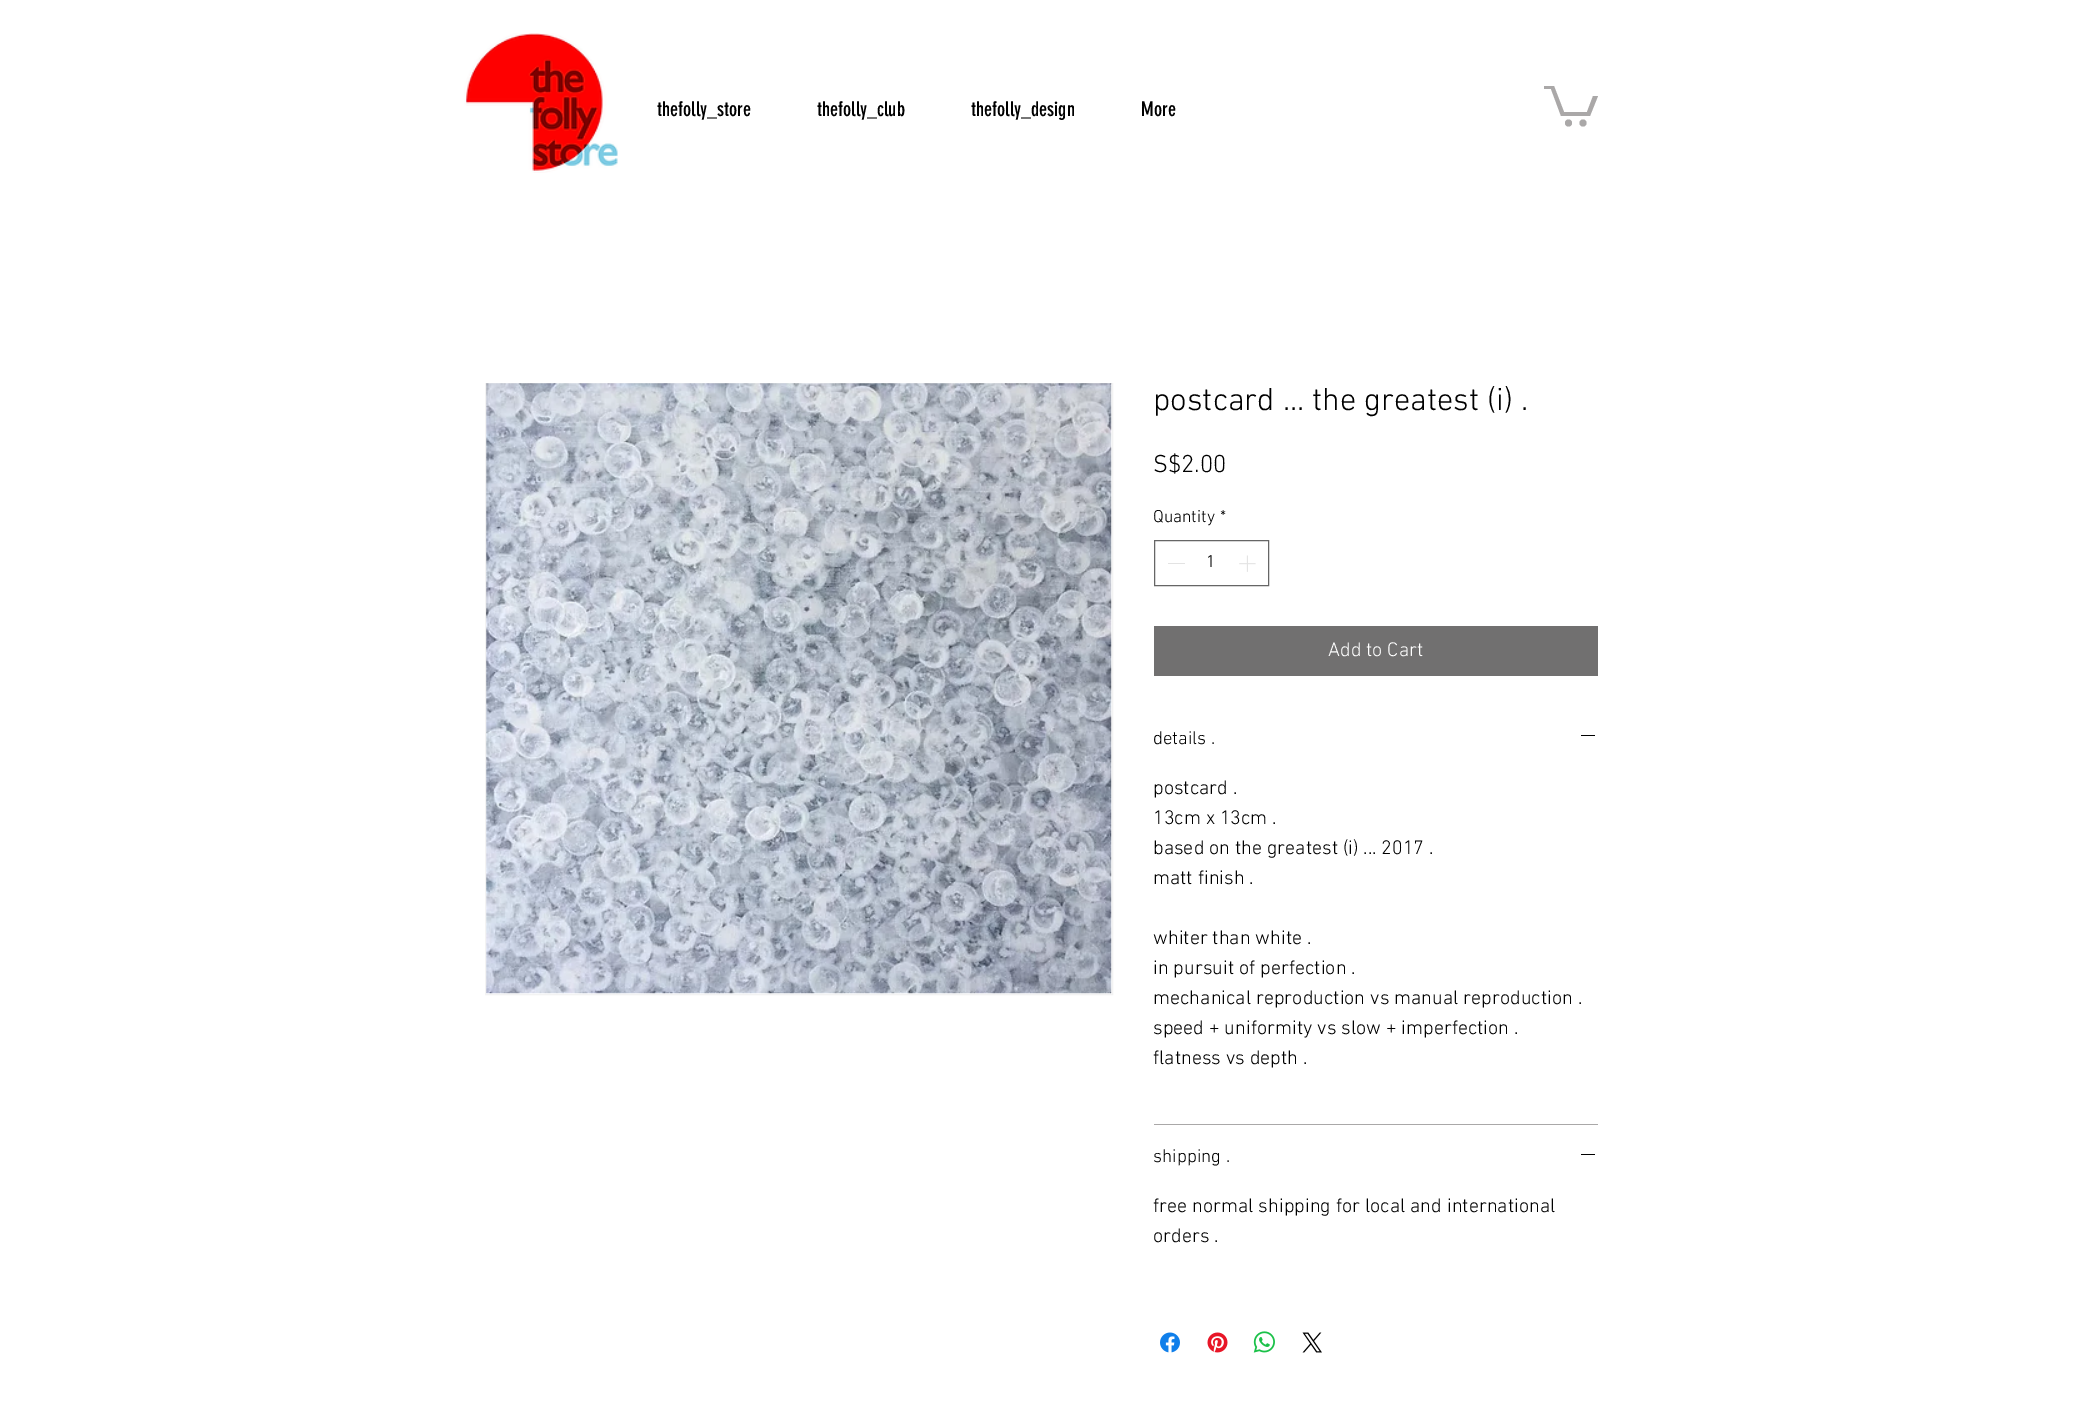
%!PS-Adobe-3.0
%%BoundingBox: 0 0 2081 1404
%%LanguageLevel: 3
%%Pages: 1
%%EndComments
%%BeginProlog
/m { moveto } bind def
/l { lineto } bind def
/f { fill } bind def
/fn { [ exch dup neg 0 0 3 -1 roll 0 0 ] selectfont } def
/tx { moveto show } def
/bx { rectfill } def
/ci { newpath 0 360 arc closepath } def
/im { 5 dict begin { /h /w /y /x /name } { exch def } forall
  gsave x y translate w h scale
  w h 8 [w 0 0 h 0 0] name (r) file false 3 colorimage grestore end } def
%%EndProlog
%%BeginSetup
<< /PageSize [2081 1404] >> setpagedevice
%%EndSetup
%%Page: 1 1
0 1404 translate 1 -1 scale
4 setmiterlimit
1 setgray
0 0 2081 1404 bx
(image0.raw) 464 33 154 140 im
/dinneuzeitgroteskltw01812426-Regular 20 fn
0 setgray
(thefolly_store) 657 116 tx
(thefolly_club) 817 116 tx
(thefolly_design) 971 116 tx
(More) 1141 116 tx
0.667 0.659 0.659 setrgbcolor
1598 96 m 1590 116 l 1561 116 l 1551 89 l 1544 89 l 1544 86 l 1554 86 l 1564 112 l 1587 112 l 1593 96 l f
1583 123 3.5 ci f
1568.5 123 3.5 ci f
0.953 setgray
485.5 383.5 627 611 rectstroke
(image1.raw) 486 383 626 611 im
/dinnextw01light-Light 32.5 fn
0 setgray
(postcard ... the greatest \(i\) .) 1153 410 tx
/dinnextw01light-Light 25 fn
(S$2.00) 1153 472 tx
/dinnextw01light-Light 17.5 fn
(Quantity) 1153 522 tx
(*) 1220 522 tx
0.4 setgray
1154.5 540.5 114 45 rectstroke
0.89 setgray
1168 563 17 1 bx
0 setgray
(1) 1206 567 tx
(image2.raw) 1239 555 17 17 im
0.443 0.439 0.439 setrgbcolor
1154 626 444 50 bx
/dinnextw01light-Light 20 fn
1 setgray
(Add to Cart) 1328 656 tx
0.667 0.659 0.659 setrgbcolor
1154 1124 444 1 bx
/dinnextw01light-Light 18.75 fn
0 setgray
(details .) 1153 744 tx
1581 735 14 1 bx
/dinnextw01light-Light 20 fn
(postcard .) 1153 794 tx
(13cm x 13cm .) 1153 824 tx
(based on the greatest \(i\) ... 2017 .) 1153 854 tx
(matt finish .) 1153 884 tx
(whiter than white .) 1153 944 tx
(in pursuit of perfection .) 1153 974 tx
(mechanical reproduction vs manual reproduction .) 1153 1004 tx
(speed + uniformity vs slow + imperfection .) 1153 1034 tx
(flatness vs depth .) 1153 1064 tx
/dinnextw01light-Light 18.75 fn
(shipping .) 1153 1162 tx
1581 1154 14 1 bx
/dinnextw01light-Light 20 fn
(free normal shipping for local and international) 1153 1212 tx
(orders .) 1153 1242 tx
(image3.raw) 1160 1332 20 21 im
(image4.raw) 1207 1332 21 21 im
(image5.raw) 1253 1331 22 22 im
(image6.raw) 1302 1332 20 21 im
showpage
%%EOF
